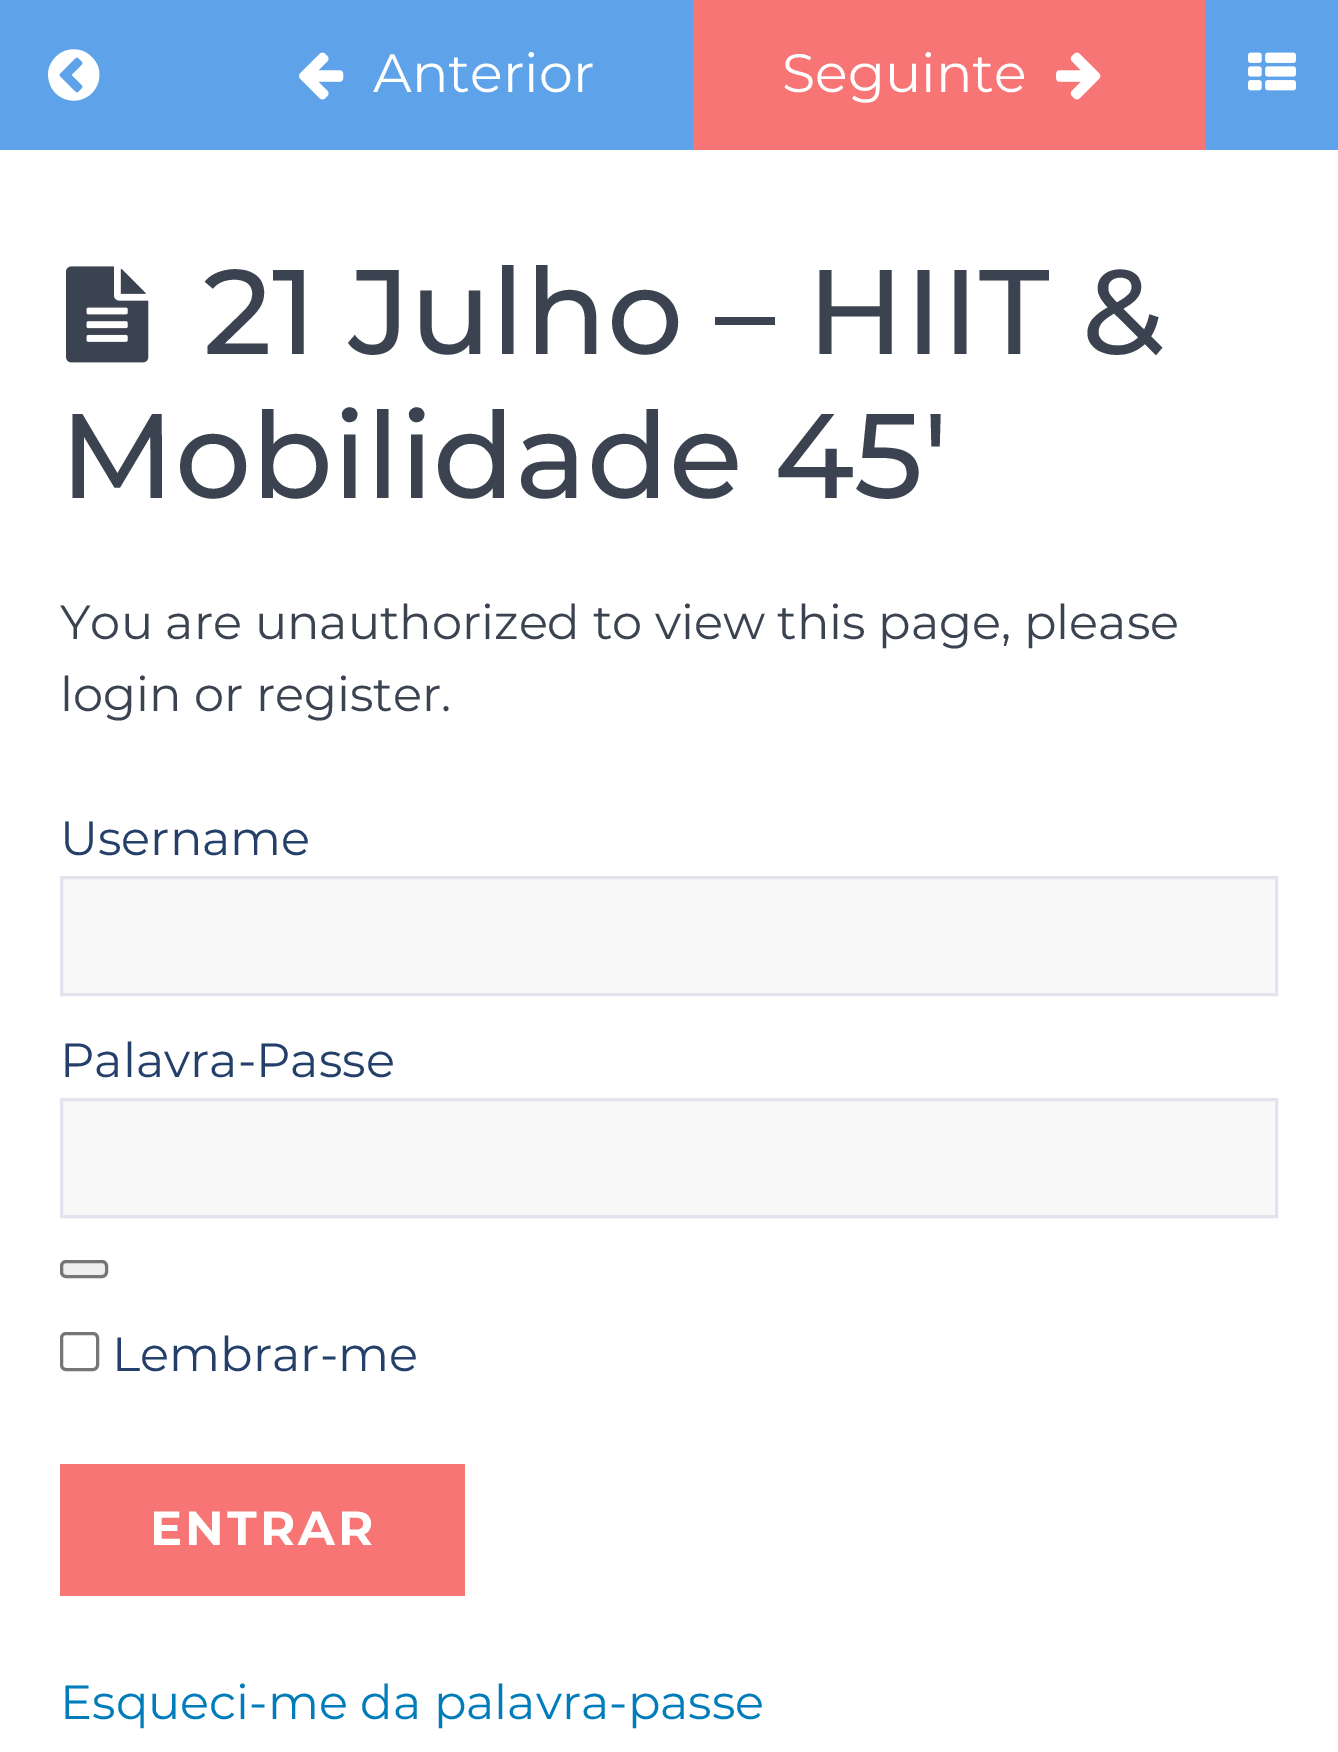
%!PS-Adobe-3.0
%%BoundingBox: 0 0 1338 1752
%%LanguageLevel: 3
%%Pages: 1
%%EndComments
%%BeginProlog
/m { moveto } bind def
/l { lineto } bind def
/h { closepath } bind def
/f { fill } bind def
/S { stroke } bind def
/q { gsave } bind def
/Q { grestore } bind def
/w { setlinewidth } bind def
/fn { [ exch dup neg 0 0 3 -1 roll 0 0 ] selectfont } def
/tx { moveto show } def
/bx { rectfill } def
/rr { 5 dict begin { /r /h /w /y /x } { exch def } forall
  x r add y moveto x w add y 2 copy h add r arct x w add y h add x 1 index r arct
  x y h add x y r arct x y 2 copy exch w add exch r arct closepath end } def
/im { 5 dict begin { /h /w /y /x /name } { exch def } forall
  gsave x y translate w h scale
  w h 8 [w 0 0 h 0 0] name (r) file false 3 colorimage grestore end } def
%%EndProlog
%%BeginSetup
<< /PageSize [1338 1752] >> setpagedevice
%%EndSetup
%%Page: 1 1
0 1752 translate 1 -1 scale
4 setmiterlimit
1 setgray
0 0 1338 1752 bx
0.369 0.639 0.918 setrgbcolor
0 0 1338 150 bx
(image0.raw) 48 49 52 52 im
(image1.raw) 299 52 45 48 im
/Montserrat-Regular 54 fn
1 setgray
(Anterior) 373 92 tx
0.973 0.459 0.459 setrgbcolor
693 0 513 150 bx
1 setgray
(Seguinte) 782 92 tx
(image2.raw) 1056 52 45 48 im
(image3.raw) 1248 52 48 39 im
(image4.raw) 66 266 83 97 im
/Montserrat-Medium 120 fn
0.231 0.263 0.318 setrgbcolor
(21 Julho – HIIT &) 203 354 tx
(Mobilidade 45′) 60 498 tx
/Montserrat-Regular 48 fn
(You are unauthorized to view this page, please) 60 639 tx
(login or register.) 60 711 tx
0.141 0.251 0.416 setrgbcolor
(Username) 60 855 tx
0.973 setgray
61.5 877.5 m 1276.5 877.5 l 1276.5 994.5 l 61.5 994.5 l h q f Q
0.89 0.89 0.941 setrgbcolor
3 w
S
0.141 0.251 0.416 setrgbcolor
(Palavra-Passe) 60 1077 tx
0.973 setgray
61.5 1099.5 m 1276.5 1099.5 l 1276.5 1216.5 l 61.5 1216.5 l h q f Q
0.89 0.89 0.941 setrgbcolor
S
0.937 setgray
61.5 1261.5 45 15 4.5 rr q f Q
0.463 setgray
S
61.5 1333.5 36 36 4.5 rr S
0.141 0.251 0.416 setrgbcolor
(Lembrar-me) 112 1371 tx
0.973 0.459 0.459 setrgbcolor
60 1464 405 132 bx
/Montserrat-Bold 48 fn
1 setgray
150 1545 m 3 0 (ENTRAR) ashow
/Montserrat-Regular 48 fn
0 0.486 0.729 setrgbcolor
(Esqueci-me da palavra-passe) 60 1719 tx
showpage
%%EOF
